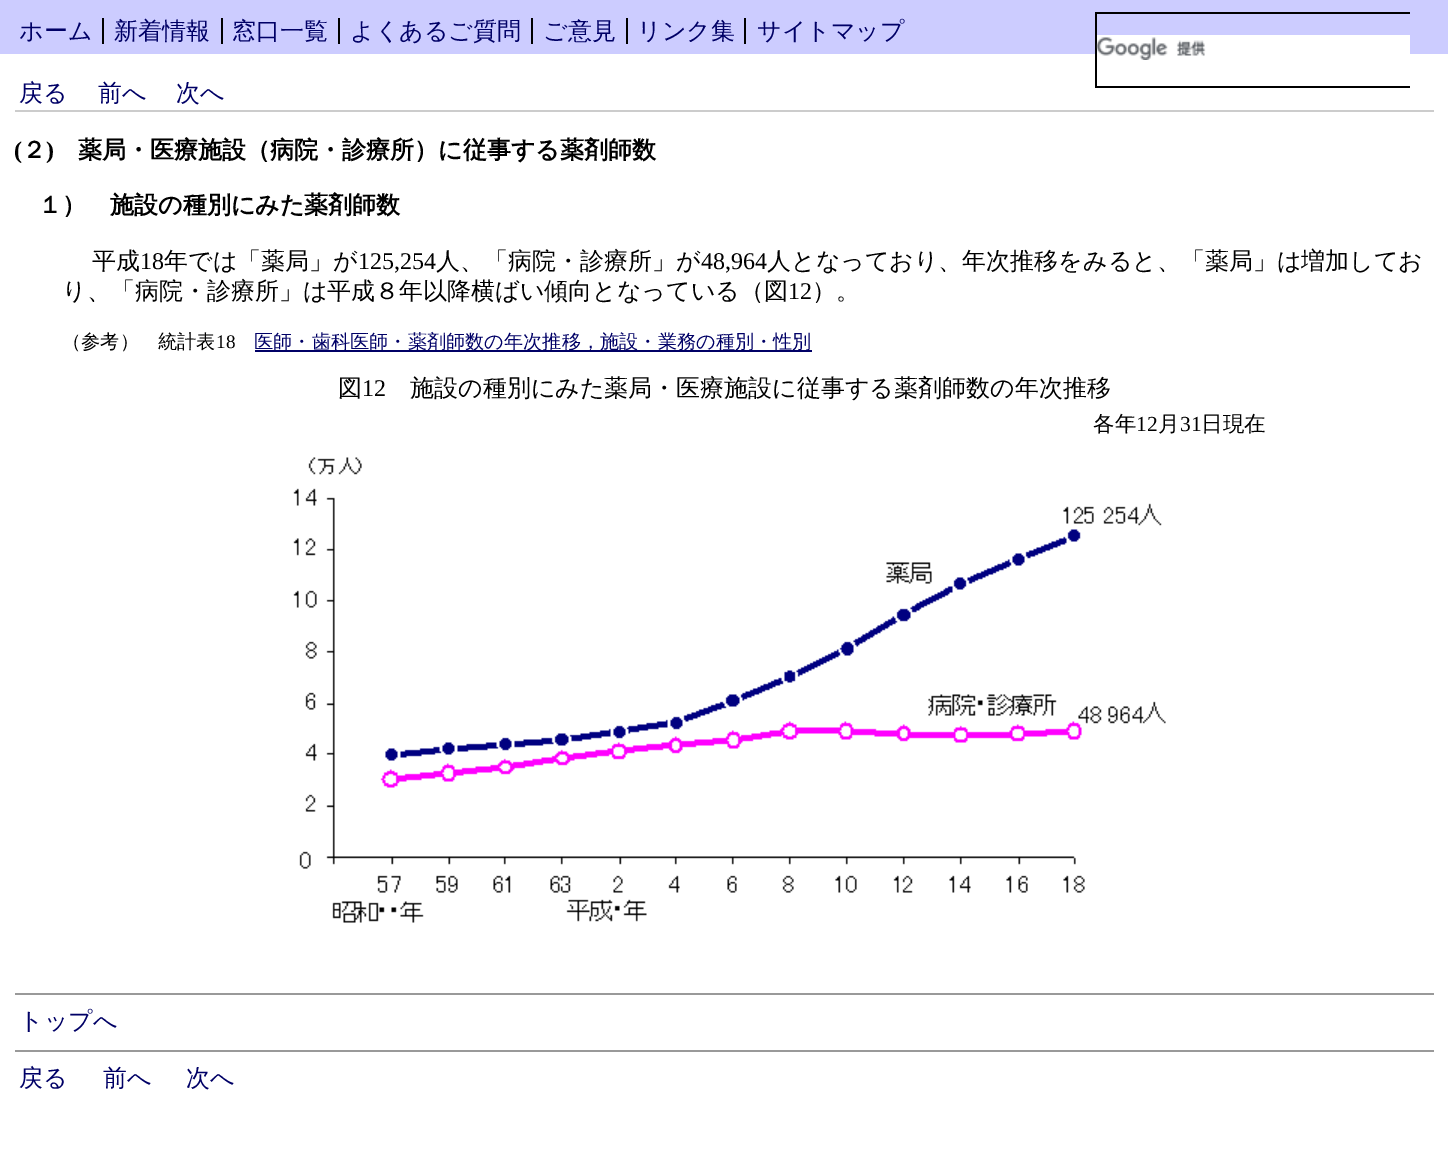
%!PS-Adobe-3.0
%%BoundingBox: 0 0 1448 1169
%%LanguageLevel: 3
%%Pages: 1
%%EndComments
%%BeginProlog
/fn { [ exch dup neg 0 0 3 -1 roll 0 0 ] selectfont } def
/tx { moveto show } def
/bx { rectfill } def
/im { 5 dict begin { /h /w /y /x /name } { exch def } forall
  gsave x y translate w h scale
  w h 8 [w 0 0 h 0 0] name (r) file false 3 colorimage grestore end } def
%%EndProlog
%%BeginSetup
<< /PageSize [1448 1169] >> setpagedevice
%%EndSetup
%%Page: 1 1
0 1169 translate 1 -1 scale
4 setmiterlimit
1 setgray
0 0 1448 1169 bx
0.8 0.8 1 setrgbcolor
0 0 1448 54 bx
/WenQuanYiZenHei-Medium 24 fn
0 0 0.4 setrgbcolor
(ホーム) 19 39 tx
0 setgray
102 18 2 26 bx
0 0 0.4 setrgbcolor
(新着情報) 114 39 tx
0 setgray
221 18 2 26 bx
0 0 0.4 setrgbcolor
(窓口一覧) 232 39 tx
0 setgray
338 18 2 26 bx
0 0 0.4 setrgbcolor
(よくあるご質問) 350 39 tx
0 setgray
531 18 2 26 bx
0 0 0.4 setrgbcolor
(ご意見) 543 39 tx
0 setgray
626 18 2 26 bx
0 0 0.4 setrgbcolor
(リンク集) 637 39 tx
0 setgray
744 18 2 26 bx
0 0 0.4 setrgbcolor
(サイトマップ) 757 39 tx
0 setgray
1095 12 315 2 bx
1095 86 315 2 bx
1095 12 2 75 bx
1 setgray
1097 35 313 19 bx
(image0.raw) 1096 37 110 23 im
0.8 setgray
15 110 1419 2 bx
0 0 0.4 setrgbcolor
(戻る) 19 101 tx
(前へ) 98 101 tx
(次へ) 176 101 tx
/LiberationSerif-Bold 24 fn
0 setgray
(\() 14 158 tx
/WenQuanYiZenHei-Bold 24 fn
(２) 22 158 tx
/LiberationSerif-Bold 24 fn
(\)) 46 158 tx
/WenQuanYiZenHei-Bold 24 fn
(薬局・医療施設（病院・診療所）に従事する薬剤師数) 78 158 tx
(１）　施設の種別にみた薬剤師数) 38 213 tx
/WenQuanYiZenHei-Medium 24 fn
(平成) 92 269 tx
/LiberationSerif-Regular 24 fn
(18) 140 269 tx
/WenQuanYiZenHei-Medium 24 fn
(年では「薬局」が) 164 269 tx
/LiberationSerif-Regular 24 fn
(125,254) 358 269 tx
/WenQuanYiZenHei-Medium 24 fn
(人、「病院・診療所」が) 436 269 tx
/LiberationSerif-Regular 24 fn
(48,964) 701 269 tx
/WenQuanYiZenHei-Medium 24 fn
(人となっており、年次推移をみると、「薬局」は増加してお) 767 269 tx
(り、「病院・診療所」は平成８年以降横ばい傾向となっている（図) 62 299 tx
/LiberationSerif-Regular 24 fn
(12) 788 299 tx
/WenQuanYiZenHei-Medium 24 fn
(）。) 812 299 tx
/WenQuanYiZenHei-Medium 19.2 fn
(（参考）　統計表) 62 348 tx
/LiberationSerif-Regular 19.2 fn
(18) 216 348 tx
0 0 0.4 setrgbcolor
255 350 557 2 bx
/WenQuanYiZenHei-Medium 19.2 fn
(医師・歯科医師・薬剤師数の年次推移，施設・業務の種別・性別) 254 348 tx
/WenQuanYiZenHei-Medium 24 fn
0 setgray
(図) 338 396 tx
/LiberationSerif-Regular 24 fn
(12) 362 396 tx
/WenQuanYiZenHei-Medium 24 fn
(施設の種別にみた薬局・医療施設に従事する薬剤師数の年次推移) 410 396 tx
/WenQuanYiZenHei-Medium 21.5 fn
(各年) 1093 431 tx
/LiberationSerif-Regular 21.5 fn
(12) 1136 431 tx
/WenQuanYiZenHei-Medium 21.5 fn
(月) 1158 431 tx
/LiberationSerif-Regular 21.5 fn
(31) 1180 431 tx
/WenQuanYiZenHei-Medium 21.5 fn
(日現在) 1201 431 tx
(image1.raw) 293 457 873 466 im
0.6 setgray
15 993 1419 2 bx
/WenQuanYiZenHei-Medium 24 fn
0 0 0.4 setrgbcolor
(トップへ) 19 1029 tx
0.6 setgray
15 1050 1419 2 bx
0 0 0.4 setrgbcolor
(戻る) 19 1086 tx
(前へ) 103 1086 tx
(次へ) 186 1086 tx
showpage
%%EOF
